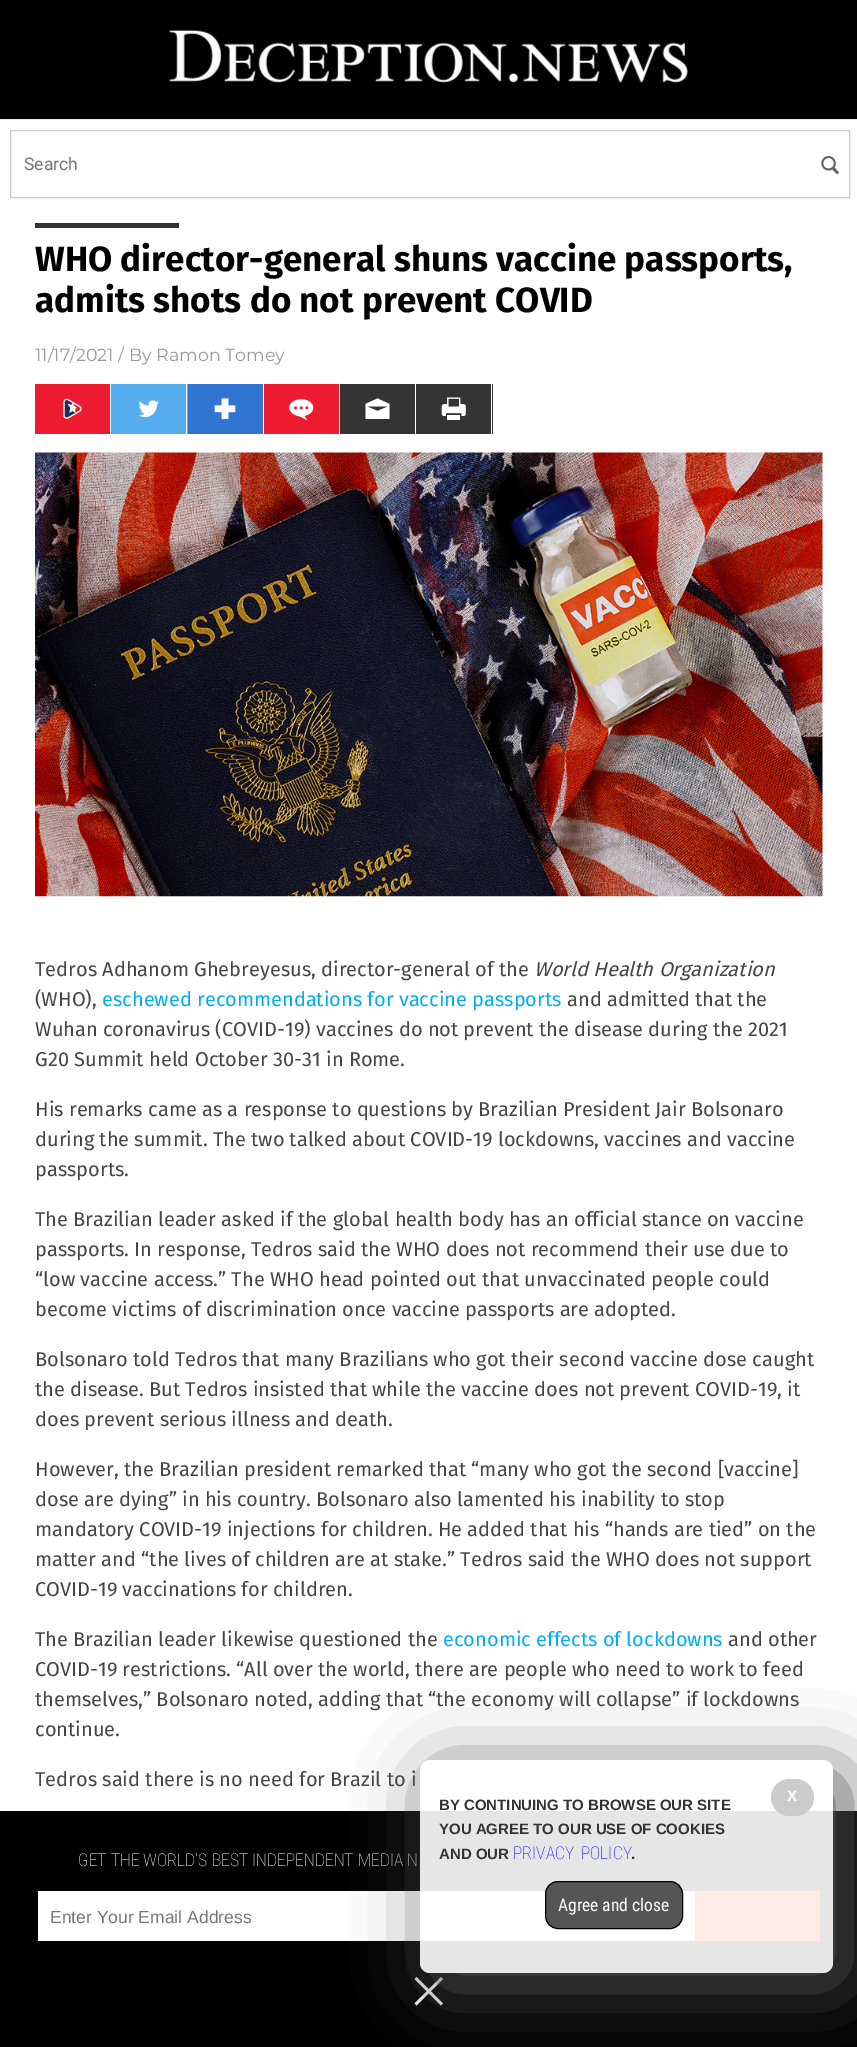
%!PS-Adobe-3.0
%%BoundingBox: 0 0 857 2047
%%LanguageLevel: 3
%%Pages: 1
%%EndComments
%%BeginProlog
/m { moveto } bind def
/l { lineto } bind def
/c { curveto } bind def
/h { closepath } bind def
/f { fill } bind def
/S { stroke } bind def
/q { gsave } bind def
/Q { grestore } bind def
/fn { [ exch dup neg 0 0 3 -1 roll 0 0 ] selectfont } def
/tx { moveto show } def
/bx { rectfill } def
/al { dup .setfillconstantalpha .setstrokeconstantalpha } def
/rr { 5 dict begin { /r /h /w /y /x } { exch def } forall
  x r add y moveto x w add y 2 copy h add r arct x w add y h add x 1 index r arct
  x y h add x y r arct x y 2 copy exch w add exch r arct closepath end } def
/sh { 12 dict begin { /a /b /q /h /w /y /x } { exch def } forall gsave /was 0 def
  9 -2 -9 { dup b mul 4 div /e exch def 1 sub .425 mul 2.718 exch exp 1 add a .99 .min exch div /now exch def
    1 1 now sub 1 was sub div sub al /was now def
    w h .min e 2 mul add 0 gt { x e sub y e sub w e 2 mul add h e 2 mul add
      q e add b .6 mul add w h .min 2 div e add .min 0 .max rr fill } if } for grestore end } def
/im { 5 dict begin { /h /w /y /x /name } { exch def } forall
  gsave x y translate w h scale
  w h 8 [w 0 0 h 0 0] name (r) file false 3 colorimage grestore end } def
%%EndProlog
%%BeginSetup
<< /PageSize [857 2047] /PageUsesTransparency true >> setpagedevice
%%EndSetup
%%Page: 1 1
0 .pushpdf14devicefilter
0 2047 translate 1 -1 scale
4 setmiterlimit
0 setgray
0 0 857 2047 bx
(image0.raw) 169 29 519 54 im
1 setgray
0 120 857 1691 bx
0.925 setgray
0 119 857 1 bx
0.8 setgray
10.5 130.5 839 67 rectstroke
/Roboto-Regular 17.5 fn
0.459 setgray
(Search) 24 170 tx
(image1.raw) 821 156 18 18 im
0.2 setgray
35 223 144 5 bx
/FiraSans-Bold 35 fn
0 setgray
(WHO director-general shuns vaccine passports,) 35 271 tx
(admits shots do not prevent COVID) 35 312 tx
/Montserrat-Regular 17.5 fn
0.6 setgray
(11/17/2021 / By Ramon Tomey) 35 361 tx
0.929 0.106 0.184 setrgbcolor
35 384 75 50 bx
(image2.raw) 63 398 19 21 im
0.333 0.675 0.937 setrgbcolor
111 384 77 50 bx
(image3.raw) 138 400 21 18 im
1 setgray
186 384 1 50 bx
0.196 0.455 0.82 setrgbcolor
188 384 75 50 bx
(image4.raw) 214 398 22 22 im
0.929 0.106 0.184 setrgbcolor
264 384 75 50 bx
(image5.raw) 289 399 25 22 im
0.204 setgray
340 384 75 50 bx
1 setgray
377.5 398.5 m 365.5 404 l 365.5 419 l 389.5 419 l 389.5 404 l h 377.5 411 m 367 406.5 l 388 406.5 l h f
0.204 setgray
416 384 77 50 bx
(image6.raw) 441 397 25 23 im
1 setgray
491 384 1 50 bx
(image7.raw) 35 452 788 445 im
/FiraSans-Regular 20 fn
0.271 setgray
(Tedros Adhanom Ghebreyesus, director-general of the) 35 976 tx
/FiraSans-Italic 20 fn
(World Health Organization) 534 976 tx
/FiraSans-Regular 20 fn
(\(WHO\),) 35 1006 tx
0 0.682 0.937 setrgbcolor
(eschewed recommendations for vaccine passports) 102 1006 tx
0.271 setgray
(and admitted that the) 567 1006 tx
(Wuhan coronavirus \(COVID-19\) vaccines do not prevent the disease during the 2021) 35 1036 tx
(G20 Summit held October 30-31 in Rome.) 35 1066 tx
(His remarks came as a response to questions by Brazilian President Jair Bolsonaro) 35 1116 tx
(during the summit. The two talked about COVID-19 lockdowns, vaccines and vaccine) 35 1146 tx
(passports.) 35 1176 tx
(The Brazilian leader asked if the global health body has an official stance on vaccine) 35 1226 tx
(passports. In response, Tedros said the WHO does not recommend their use due to) 35 1256 tx
(“low vaccine access.” The WHO head pointed out that unvaccinated people could) 35 1286 tx
(become victims of discrimination once vaccine passports are adopted.) 35 1316 tx
(Bolsonaro told Tedros that many Brazilians who got their second vaccine dose caught) 35 1366 tx
(the disease. But Tedros insisted that while the vaccine does not prevent COVID-19, it) 35 1396 tx
(does prevent serious illness and death.) 35 1426 tx
(However, the Brazilian president remarked that “many who got the second [vaccine]) 35 1476 tx
(dose are dying” in his country. Bolsonaro also lamented his inability to stop) 35 1506 tx
(mandatory COVID-19 injections for children. He added that his “hands are tied” on the) 35 1536 tx
(matter and “the lives of children are at stake.” Tedros said the WHO does not support) 35 1566 tx
(COVID-19 vaccinations for children.) 35 1596 tx
(The Brazilian leader likewise questioned the) 35 1646 tx
0 0.682 0.937 setrgbcolor
(economic effects of lockdowns) 443 1646 tx
0.271 setgray
(and other) 728 1646 tx
(COVID-19 restrictions. “All over the world, there are people who need to work to feed) 35 1676 tx
(themselves,” Bolsonaro noted, adding that “the economy will collapse” if lockdowns) 35 1706 tx
(continue.) 35 1736 tx
(Tedros said there is no need for Brazil to i) 35 1786 tx
/RobotoCondensed-Thin 17.5 fn
1 setgray
78 1866 m 0.25 0 32 (GET THE WORLD'S BEST INDEPENDENT MEDIA N) widthshow
38 1891 657 50 bx
/LiberationSans-Regular 17.5 fn
0.459 setgray
(Enter Your Email Address) 50 1923 tx
1 0.2 0 setrgbcolor
695 1891 125 50 bx
(image8.raw) 414 1977 29 29 im
q
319 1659 m 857 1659 l 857 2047 l 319 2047 l h 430 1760 m 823 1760 l 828.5 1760 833 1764.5 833 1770 c 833 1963 l 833 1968.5 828.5 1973 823 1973 c 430 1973 l 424.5 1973 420 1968.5 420 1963 c 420 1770 l 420 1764.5 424.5 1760 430 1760 c h eoclip newpath
0.333 setgray
433 1773 412 212 10 37.5 1 sh
Q
0.9 al
1 setgray
420 1760 413 213 10 rr f
1 al
0.8 setgray
771 1779 43 37 18.5 rr f
/LiberationSans-Bold 15 fn
1 setgray
(X) 787 1801 tx
0.2 setgray
(BY CONTINUING TO BROWSE OUR SITE) 439 1810 tx
(YOU AGREE TO OUR USE OF COOKIES) 439 1834 tx
(AND OUR) 439 1859 tx
/RobotoCondensed-Thin 17.5 fn
0 0 1 setrgbcolor
513 1859 m 3 0 32 (PRIVACY POLICY) widthshow
/LiberationSans-Bold 15 fn
0.2 setgray
(.) 631 1859 tx
0.333 setgray
545.5 1881.5 137 47 12.5 rr q f Q
0 setgray
S
/RobotoCondensed-Regular 17.5 fn
1 setgray
(Agree and close) 558 1911 tx
.poppdf14devicefilter showpage
%%EOF
